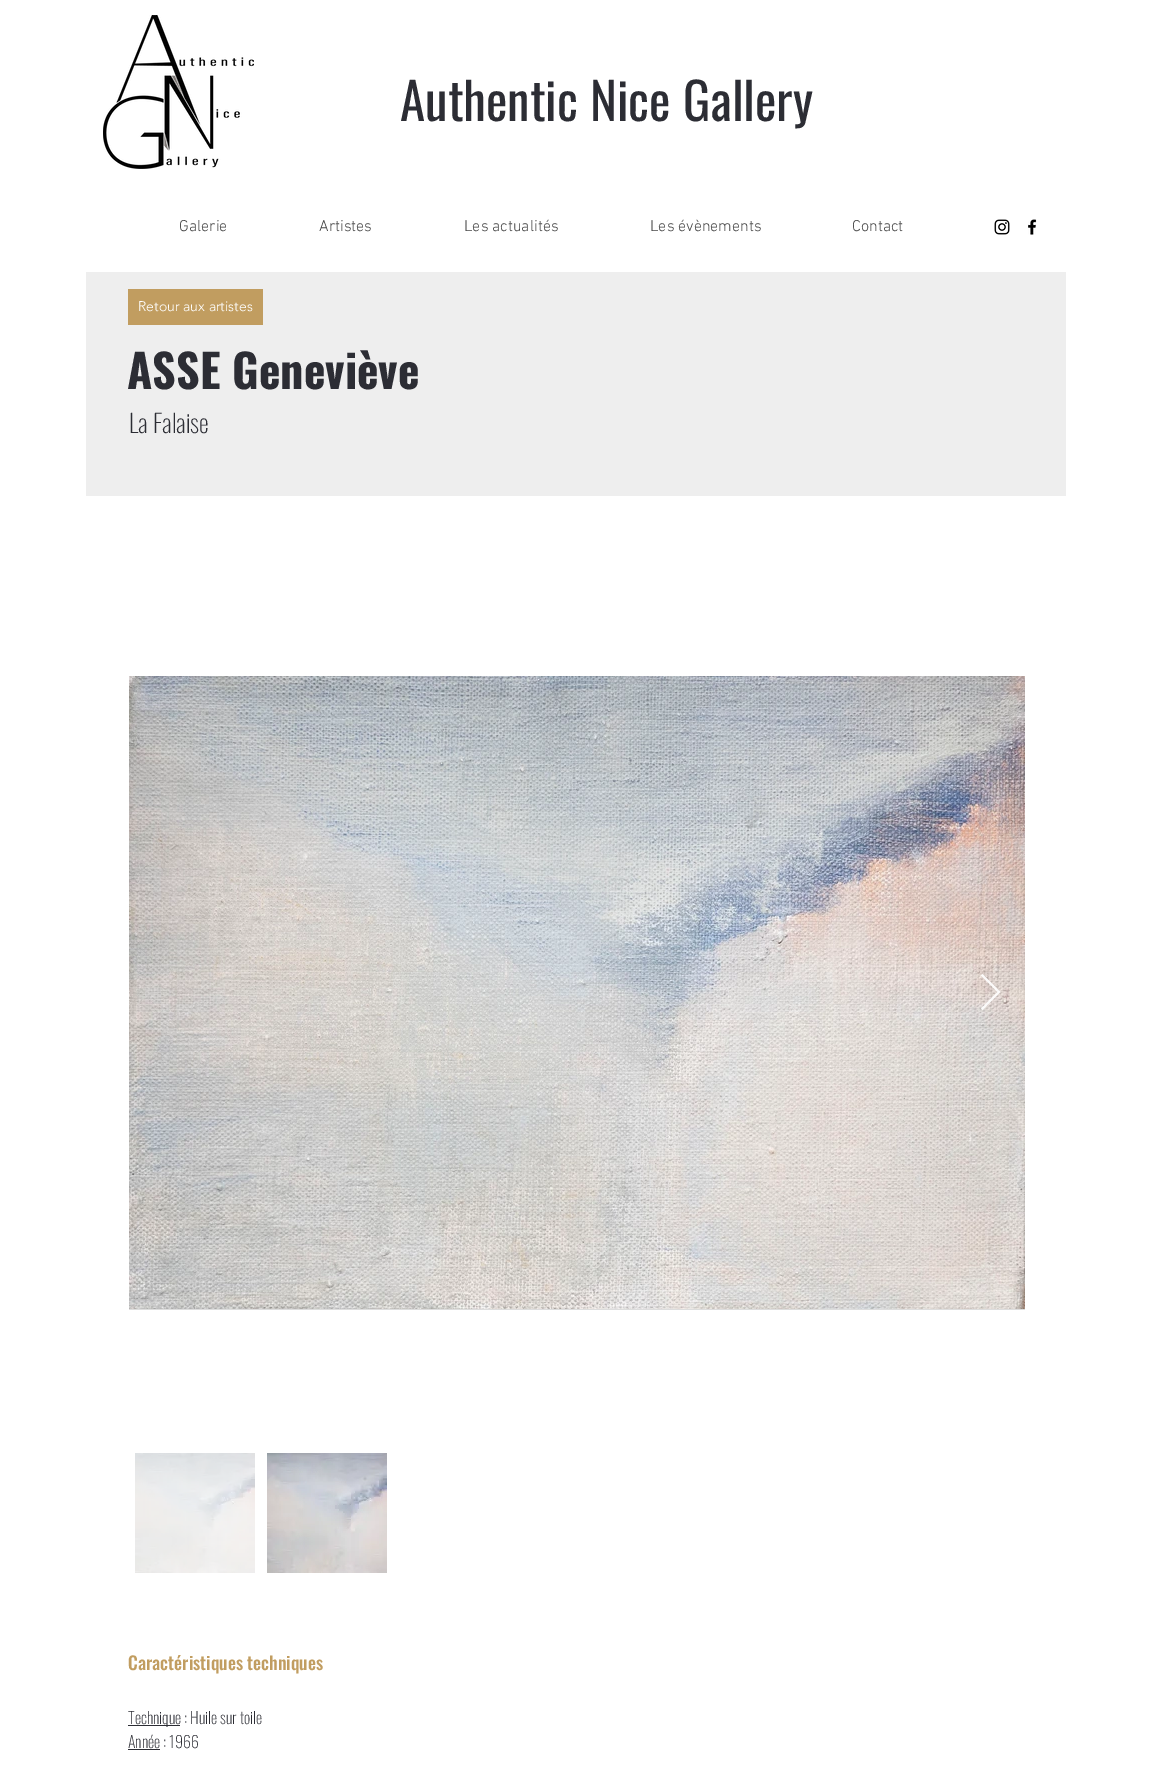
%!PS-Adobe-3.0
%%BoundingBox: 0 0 1151 1766
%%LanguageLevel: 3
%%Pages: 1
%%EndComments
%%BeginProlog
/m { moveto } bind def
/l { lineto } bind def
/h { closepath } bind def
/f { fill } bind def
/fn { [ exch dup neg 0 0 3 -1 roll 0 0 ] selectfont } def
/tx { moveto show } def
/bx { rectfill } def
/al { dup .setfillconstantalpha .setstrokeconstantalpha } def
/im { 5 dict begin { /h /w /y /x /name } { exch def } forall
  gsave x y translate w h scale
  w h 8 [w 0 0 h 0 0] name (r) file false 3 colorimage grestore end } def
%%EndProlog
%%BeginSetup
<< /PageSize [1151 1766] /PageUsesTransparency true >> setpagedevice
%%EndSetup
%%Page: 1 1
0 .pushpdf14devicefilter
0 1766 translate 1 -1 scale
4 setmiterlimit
1 setgray
0 0 1151 1766 bx
(image0.raw) 103 15 151 154 im
/Oswald-Regular 51 fn
0.173 0.176 0.204 setrgbcolor
(Authentic Nice Gallery) 400 121 tx
/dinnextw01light-Light 16 fn
0.267 setgray
(Galerie) 179 231 tx
(Artistes) 319 231 tx
(Les actualités) 464 231 tx
(Les évènements) 650 231 tx
(Contact) 852 231 tx
(image1.raw) 994 219 16 16 im
(image2.raw) 1028 219 9 16 im
0.933 setgray
86 272 980 224 bx
0.757 0.616 0.376 setrgbcolor
128 289 135 36 bx
/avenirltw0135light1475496-Light 14 fn
1 setgray
(Retour aux artistes) 138 311 tx
/Oswald-Bold 46 fn
0.173 0.176 0.204 setrgbcolor
(ASSE Geneviève) 127 389 tx
/Oswald-ExtraLight 25 fn
(La Falaise) 129 433 tx
0.867 setgray
129 1309 896 1 bx
(image3.raw) 129 676 896 633 im
0.9 al
1 setgray
981 975.5 m 982.5 974 l 1000.5 992 l 982.5 1010 l 981 1008.5 l 997.5 992 l h f
1 al
(image4.raw) 135 1453 120 120 im
(image5.raw) 267 1453 120 120 im
/Oswald-Medium 18 fn
0.757 0.616 0.376 setrgbcolor
(Caractéristiques techniques) 128 1670 tx
0.173 0.176 0.204 setrgbcolor
128 1725 52 1 bx
/Oswald-ExtraLight 16 fn
(Technique : Huile sur toile) 128 1724 tx
(Année : 1966) 128 1748 tx
128 1749 32 1 bx
.poppdf14devicefilter showpage
%%EOF
